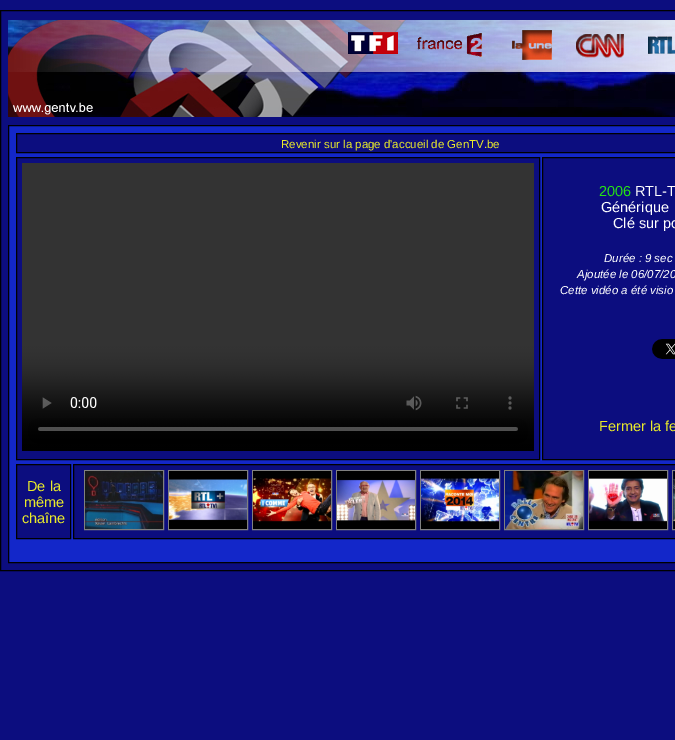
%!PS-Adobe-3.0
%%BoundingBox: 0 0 675 740
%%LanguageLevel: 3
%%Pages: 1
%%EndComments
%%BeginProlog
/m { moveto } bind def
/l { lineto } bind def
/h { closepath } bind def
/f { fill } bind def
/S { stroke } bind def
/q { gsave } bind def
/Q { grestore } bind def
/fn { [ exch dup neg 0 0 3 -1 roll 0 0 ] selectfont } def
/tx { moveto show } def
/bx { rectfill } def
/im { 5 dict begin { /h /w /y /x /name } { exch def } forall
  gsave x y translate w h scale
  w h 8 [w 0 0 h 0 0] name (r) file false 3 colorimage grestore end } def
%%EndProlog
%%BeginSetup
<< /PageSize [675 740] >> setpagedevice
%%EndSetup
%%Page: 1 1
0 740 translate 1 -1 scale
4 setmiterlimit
0.047 0.051 0.498 setrgbcolor
0 0 675 740 bx
0 setgray
0.5 10.5 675 560 rectstroke
(image0.raw) 8 20 667 97 im
0.075 0.153 0.788 setrgbcolor
8.5 125.5 m 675.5 125.5 l 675.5 562.5 l 8.5 562.5 l h q f Q
0 setgray
S
0.047 0.051 0.498 setrgbcolor
16.5 133.5 m 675.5 133.5 l 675.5 152.5 l 16.5 152.5 l h q f Q
0 setgray
S
/LiberationSans-Regular 11.5 fn
0.918 0.922 0.165 setrgbcolor
(Revenir sur la page d'accueil de GenTV.be) 281 148 tx
0.047 0.051 0.498 setrgbcolor
16.5 157.5 m 539.5 157.5 l 539.5 459.5 l 16.5 459.5 l h q f Q
0 setgray
S
(image1.raw) 22 163 512 288 im
0.047 0.051 0.498 setrgbcolor
542.5 157.5 m 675.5 157.5 l 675.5 459.5 l 542.5 459.5 l h q f Q
0 setgray
S
/LiberationSans-Regular 14.5 fn
0.149 0.882 0.082 setrgbcolor
(2006) 599 196 tx
1 setgray
(RTL-T) 635 196 tx
(Générique) 601 212 tx
(Clé sur po) 613 228 tx
/LiberationSans-Italic 11.5 fn
(Durée : 9 sec) 604 262 tx
(Ajoutée le 06/07/20) 577 278 tx
(Cette vidéo a été visio) 560 294 tx
(image2.raw) 652 339 23 20 im
/LiberationSans-Regular 14.5 fn
0.918 0.922 0.165 setrgbcolor
(Fermer la fe) 599 431 tx
0.047 0.051 0.498 setrgbcolor
16.5 464.5 m 70.5 464.5 l 70.5 538.5 l 16.5 538.5 l h q f Q
0 setgray
S
0.918 0.922 0.165 setrgbcolor
(De la) 27 491 tx
(même) 24 507 tx
(chaîne) 22 523 tx
0.047 0.051 0.498 setrgbcolor
73.5 464.5 m 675.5 464.5 l 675.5 538.5 l 73.5 538.5 l h q f Q
0 setgray
S
0.502 setgray
84.5 470.5 79 59 rectstroke
168.5 470.5 79 59 rectstroke
252.5 470.5 79 59 rectstroke
336.5 470.5 79 59 rectstroke
420.5 470.5 79 59 rectstroke
504.5 470.5 79 59 rectstroke
588.5 470.5 79 59 rectstroke
672.5 470.5 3 59 rectstroke
(image3.raw) 85 471 78 58 im
(image4.raw) 169 471 78 58 im
(image5.raw) 253 471 78 58 im
(image6.raw) 337 471 78 58 im
(image7.raw) 421 471 78 58 im
(image8.raw) 505 471 78 58 im
(image9.raw) 589 471 78 58 im
(image10.raw) 673 471 2 58 im
showpage
%%EOF
